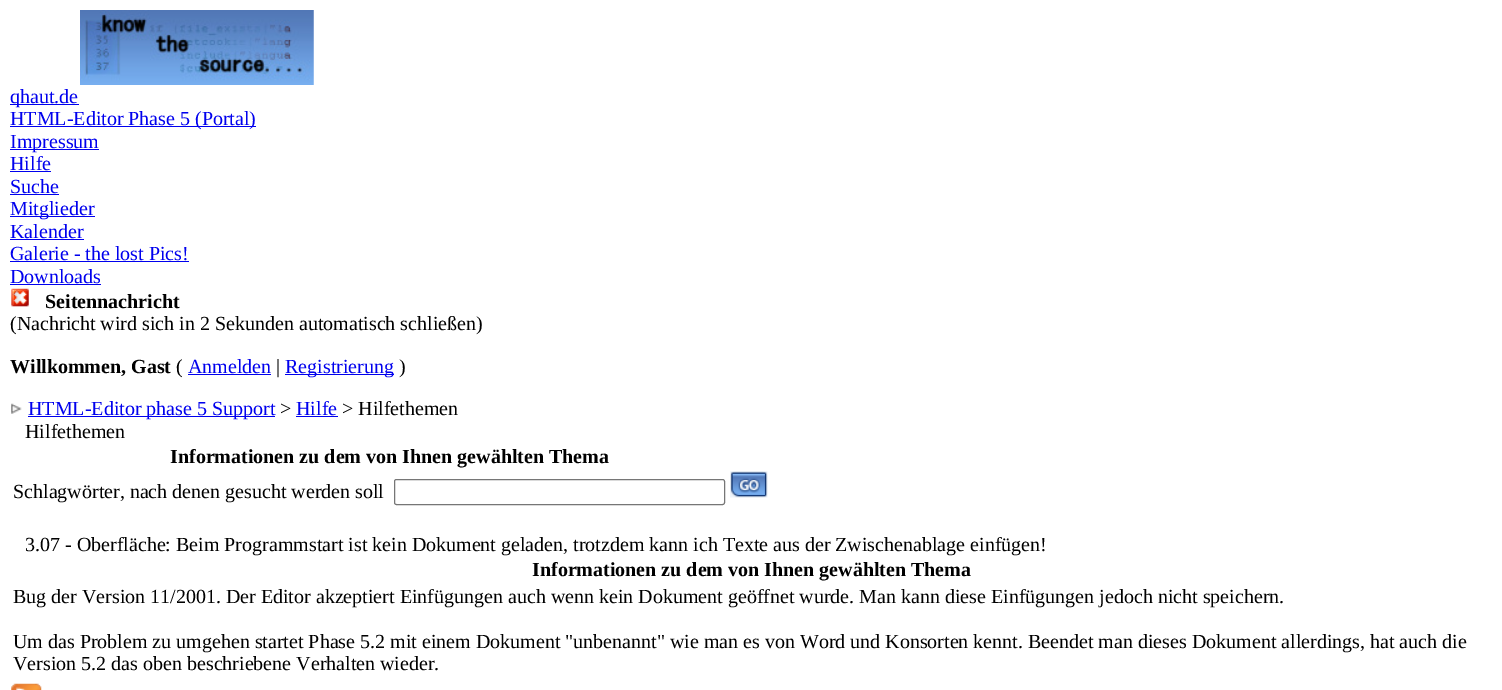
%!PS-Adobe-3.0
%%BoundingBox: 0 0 1502 690
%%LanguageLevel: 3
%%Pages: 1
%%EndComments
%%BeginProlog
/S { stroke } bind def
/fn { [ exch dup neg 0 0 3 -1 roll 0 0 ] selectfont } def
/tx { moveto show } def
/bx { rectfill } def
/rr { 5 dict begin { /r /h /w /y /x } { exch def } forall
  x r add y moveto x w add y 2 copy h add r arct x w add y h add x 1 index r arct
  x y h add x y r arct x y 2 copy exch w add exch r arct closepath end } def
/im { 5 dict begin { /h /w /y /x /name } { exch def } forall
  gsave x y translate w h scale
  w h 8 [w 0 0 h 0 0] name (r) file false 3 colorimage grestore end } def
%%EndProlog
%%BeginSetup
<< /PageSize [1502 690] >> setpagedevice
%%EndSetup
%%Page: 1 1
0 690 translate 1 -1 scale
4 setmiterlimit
1 setgray
0 0 1502 690 bx
(image0.raw) 80 10 234 75 im
0 0 0.933 setrgbcolor
10 104 69 1 bx
/LiberationSerif-Regular 20 fn
(qhaut.de) 10 103 tx
10 126 246 1 bx
(HTML-Editor Phase 5 \(Portal\)) 10 125 tx
10 149 89 1 bx
(Impressum) 10 148 tx
(Hilfe) 10 170 tx
10 171 41 1 bx
(Suche) 10 193 tx
10 194 49 1 bx
10 216 85 1 bx
(Mitglieder) 10 215 tx
(Kalender) 10 238 tx
10 239 74 1 bx
(Galerie - the lost Pics!) 10 260 tx
10 261 179 1 bx
(Downloads) 10 283 tx
10 284 91 1 bx
(image1.raw) 11 288 18 19 im
/LiberationSerif-Bold 20 fn
0 setgray
(Seitennachricht) 45 308 tx
/LiberationSerif-Regular 20 fn
(\(Nachricht wird sich in 2 Sekunden automatisch schließen\)) 10 330 tx
/LiberationSerif-Bold 20 fn
(Willkommen, Gast) 10 373 tx
/LiberationSerif-Regular 20 fn
(\() 176 373 tx
0 0 0.933 setrgbcolor
(Anmelden) 188 373 tx
188 374 83 1 bx
0 setgray
(|) 276 373 tx
0 0 0.933 setrgbcolor
285 374 109 1 bx
(Registrierung) 285 373 tx
0 setgray
(\)) 399 373 tx
(image2.raw) 11 403 11 11 im
0 0 0.933 setrgbcolor
28 416 247 1 bx
(HTML-Editor phase 5 Support) 28 415 tx
0 setgray
(>) 280 415 tx
0 0 0.933 setrgbcolor
(Hilfe) 296 415 tx
296 416 42 1 bx
0 setgray
(> Hilfethemen) 342 415 tx
(Hilfethemen) 25 438 tx
/LiberationSerif-Bold 20 fn
(Informationen zu dem von Ihnen gewählten Thema) 170 463 tx
/LiberationSerif-Regular 20 fn
(Schlagwörter, nach denen gesucht werden soll) 13 498 tx
0.463 setgray
394.5 479.5 330 25 2 rr S
(image3.raw) 730 471 38 27 im
0 setgray
(3.07 - Oberfläche: Beim Programmstart ist kein Dokument geladen, trotzdem kann ich Texte aus der Zwischenablage einfügen!) 25 551 tx
/LiberationSerif-Bold 20 fn
(Informationen zu dem von Ihnen gewählten Thema) 532 576 tx
/LiberationSerif-Regular 20 fn
(Bug der Version 11/2001. Der Editor akzeptiert Einfügungen auch wenn kein Dokument geöffnet wurde. Man kann diese Einfügungen jedoch nicht speichern.) 13 603 tx
(Um das Problem zu umgehen startet Phase 5.2 mit einem Dokument "unbenannt" wie man es von Word und Konsorten kennt. Beendet man dieses Dokument allerdings, hat auch die) 13 648 tx
(Version 5.2 das oben beschriebene Verhalten wieder.) 13 670 tx
(image4.raw) 11 683 31 7 im
showpage
%%EOF
